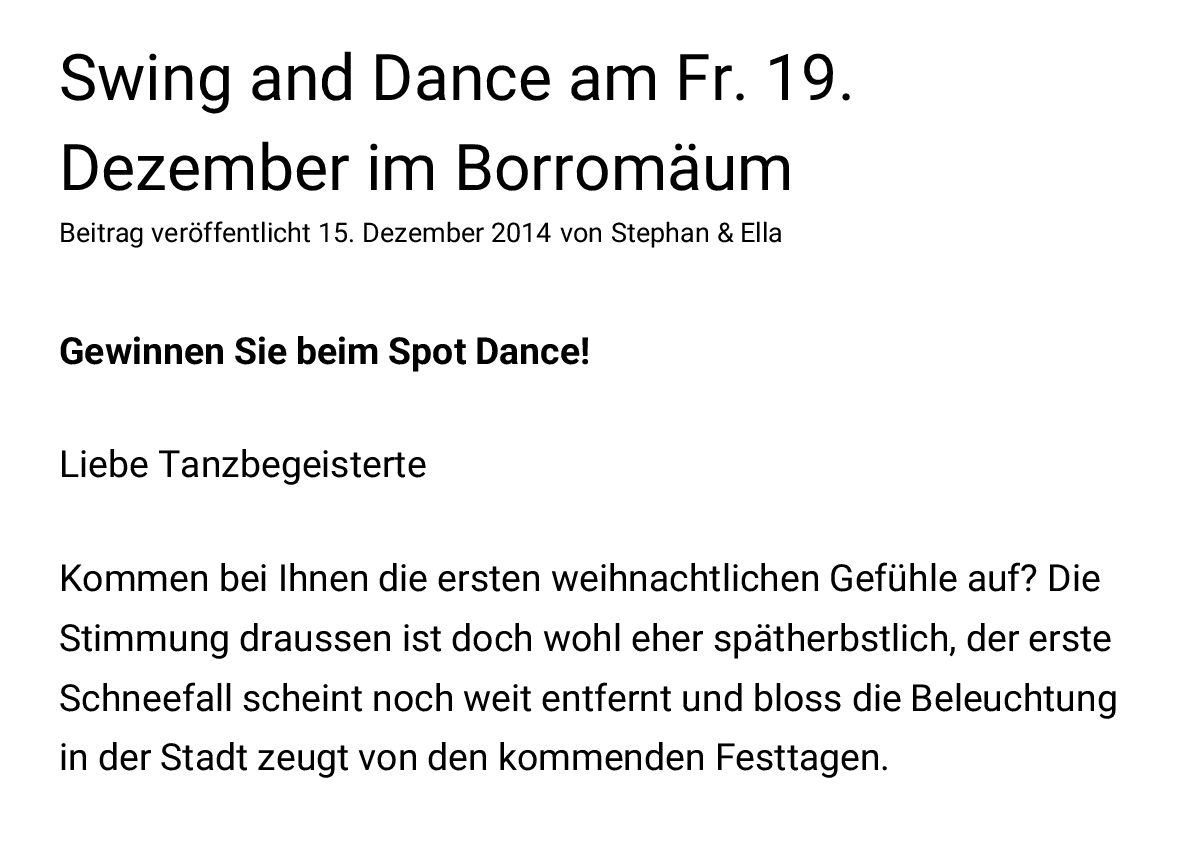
%!PS-Adobe-3.0
%%BoundingBox: 0 0 1177 856
%%LanguageLevel: 3
%%Pages: 1
%%EndComments
%%BeginProlog
/m { moveto } bind def
/fn { [ exch dup neg 0 0 3 -1 roll 0 0 ] selectfont } def
/tx { moveto show } def
/bx { rectfill } def
%%EndProlog
%%BeginSetup
<< /PageSize [1177 856] >> setpagedevice
%%EndSetup
%%Page: 1 1
0 856 translate 1 -1 scale
4 setmiterlimit
1 setgray
0 0 1177 856 bx
/Roboto-Regular 64.3 fn
0 setgray
(Swing and Dance am Fr. 19.) 59 100 tx
(Dezember im Borromäum) 59 190 tx
/Roboto-Regular 27 fn
(Beitrag veröffentlicht) 59 242 tx
(15. Dezember 2014) 318 242 tx
(von) 560 242 tx
(Stephan & Ella) 611 242 tx
/Roboto-Bold 37.35 fn
59 364 m -0.25 0 32 (Gewinnen Sie beim Spot Dance!) widthshow
/Roboto-Regular 37.35 fn
(Liebe Tanzbegeisterte) 59 477 tx
59 591 m -0.25 0 32 (Kommen bei Ihnen die ersten weihnachtlichen Gefühle auf? Die) widthshow
59 651 m -0.25 0 32 (Stimmung draussen ist doch wohl eher spätherbstlich, der erste) widthshow
59 711 m -0.25 0 32 (Schneefall scheint noch weit entfernt und bloss die Beleuchtung) widthshow
59 770 m -0.25 0 32 (in der Stadt zeugt von den kommenden Festtagen.) widthshow
showpage
%%EOF
